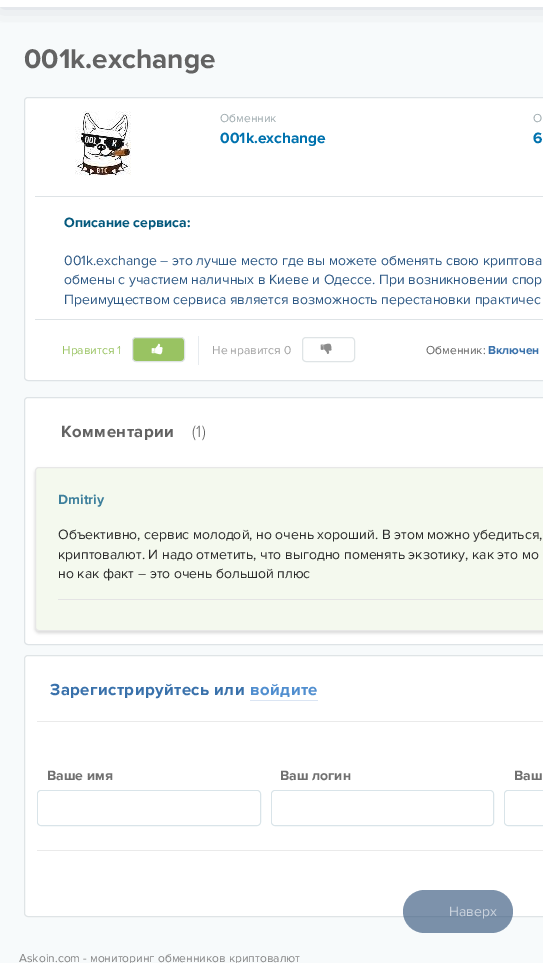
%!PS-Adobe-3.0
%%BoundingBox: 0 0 543 963
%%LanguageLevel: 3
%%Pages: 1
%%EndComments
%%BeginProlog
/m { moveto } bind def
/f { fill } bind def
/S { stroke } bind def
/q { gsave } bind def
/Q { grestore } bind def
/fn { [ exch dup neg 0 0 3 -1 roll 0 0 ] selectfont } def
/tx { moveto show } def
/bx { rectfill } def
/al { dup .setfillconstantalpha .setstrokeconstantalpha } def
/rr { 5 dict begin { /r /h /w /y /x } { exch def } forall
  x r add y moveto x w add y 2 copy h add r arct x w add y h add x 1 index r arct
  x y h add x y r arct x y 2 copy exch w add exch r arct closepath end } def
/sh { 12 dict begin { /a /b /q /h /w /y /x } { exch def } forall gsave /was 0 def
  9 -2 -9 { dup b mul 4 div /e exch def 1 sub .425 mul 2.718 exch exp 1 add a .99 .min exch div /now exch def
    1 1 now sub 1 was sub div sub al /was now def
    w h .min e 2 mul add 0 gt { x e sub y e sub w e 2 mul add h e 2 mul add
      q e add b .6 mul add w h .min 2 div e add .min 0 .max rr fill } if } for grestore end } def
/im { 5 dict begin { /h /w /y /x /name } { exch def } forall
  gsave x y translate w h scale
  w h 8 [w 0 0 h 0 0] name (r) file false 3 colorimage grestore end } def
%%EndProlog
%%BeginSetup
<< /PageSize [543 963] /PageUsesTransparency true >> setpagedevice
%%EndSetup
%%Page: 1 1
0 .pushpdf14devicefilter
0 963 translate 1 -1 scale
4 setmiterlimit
0.969 0.98 0.984 setrgbcolor
0 0 543 963 bx
1 setgray
0 0 543 7 bx
q
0 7 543 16 rectclip
0.271 0.31 0.447 setrgbcolor
0 -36 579 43 0 12 0.22 sh
Q
/ProximaNova-Bold 28 fn
0.388 setgray
(001k.exchange) 24 68 tx
1 setgray
24.5 97.5 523 283 3.5 rr q f Q
0.871 0.89 0.902 setrgbcolor
S
35 196 508 1 bx
(image0.raw) 75 111 56 65 im
/ProximaNova-Regular 12 fn
0.62 0.667 0.682 setrgbcolor
(Обменник) 220 122 tx
/ProximaNova-Bold 15.5 fn
0 0.447 0.682 setrgbcolor
(001k.exchange) 220 143 tx
/ProximaNova-Regular 12 fn
0.62 0.667 0.682 setrgbcolor
(О) 533 122 tx
/ProximaNova-Bold 15.5 fn
0 0.447 0.682 setrgbcolor
(6) 533 143 tx
/ProximaNova-Bold 14 fn
0.016 0.349 0.49 setrgbcolor
(Описание сервиса:) 64 227 tx
/ProximaNova-Regular 14 fn
0.176 0.345 0.518 setrgbcolor
(001k.exchange – это лучше место где вы можете обменять свою криптова) 64 265 tx
(обмены с участием наличных в Киеве и Одессе. При возникновении спор) 64 284 tx
(Преимуществом сервиса является возможность перестановки практичес) 64 304 tx
0.871 0.89 0.902 setrgbcolor
35 319 508 1 bx
0.906 0.922 0.937 setrgbcolor
198 336 1 29 bx
/ProximaNova-Regular 12 fn
0.6 0.765 0.384 setrgbcolor
(Нравится 1) 62 354 tx
132.5 337.5 52 24 3.5 rr q f Q
0.875 0.894 0.902 setrgbcolor
S
(image1.raw) 151 343 12 12 im
0.627 setgray
(Не нравится 0) 212 354 tx
0.875 0.894 0.902 setrgbcolor
302.5 337.5 52 24 3.5 rr S
(image2.raw) 320 343 12 11 im
0.388 setgray
(Обменник:) 426 354 tx
/ProximaNova-Bold 12 fn
0.224 0.443 0.671 setrgbcolor
(Включен) 488 354 tx
1 setgray
24.5 397.5 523 247 3.5 rr q f Q
0.871 0.89 0.902 setrgbcolor
S
/ProximaNova-Bold 16.75 fn
0.388 setgray
61 437 m 0.5 0 (Комментарии) ashow
/ProximaNova-Light 16.75 fn
192 437 m 0.5 0 (\(1\)) ashow
0 setgray
35 469 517 164 4 1.5 0.15 sh
0.957 0.976 0.933 setrgbcolor
35.5 467.5 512 163 3.5 rr q f Q
0.906 setgray
S
/ProximaNova-Bold 14 fn
0.243 0.502 0.612 setrgbcolor
(Dmitriy) 58 504 tx
/ProximaNova-Regular 14 fn
0.165 setgray
(Объективно, сервис молодой, но очень хороший. В этом можно убедиться,) 58 539 tx
(криптовалют. И надо отметить, что выгодно поменять экзотику, как это мо) 58 559 tx
(но как факт – это очень большой плюс) 58 578 tx
0.894 setgray
58 599 485 1 bx
1 setgray
24.5 655.5 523 261 3.5 rr q f Q
0.875 0.894 0.902 setrgbcolor
S
/ProximaNova-Bold 16.75 fn
0.224 0.443 0.671 setrgbcolor
50 695 m 0.4 0 (Зарегистрируйтесь или) ashow
0.314 0.557 0.812 setrgbcolor
250 695 m 0.4 0 (войдите) ashow
0.859 0.898 0.953 setrgbcolor
250 700 68 1 bx
0.918 setgray
37 721 506 1 bx
/ProximaNova-Bold 14 fn
0.439 setgray
(Ваше имя) 47 780 tx
0.851 0.894 0.914 setrgbcolor
37.5 790.5 223 35 3.5 rr S
1 setgray
38 791 222 34 4 rr f
0.439 setgray
(Ваш логин) 280 780 tx
0.851 0.894 0.914 setrgbcolor
271.5 790.5 222 35 3.5 rr S
1 setgray
272 791 221 34 4 rr f
0.439 setgray
(Ваш) 514 780 tx
0.851 0.894 0.914 setrgbcolor
504.5 790.5 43 35 3.5 rr S
1 setgray
505 791 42 34 4 rr f
0.918 setgray
37 850 506 1 bx
0.6 al
0.153 0.29 0.451 setrgbcolor
403 890 110 43 21.5 rr f
/ProximaNova-Regular 14 fn
1 al
0.796 0.827 0.867 setrgbcolor
(Наверх) 449 916 tx
/ProximaNova-Regular 12 fn
0.518 setgray
(Askoin.com - мониторинг обменников криптовалют) 19 962 tx
.poppdf14devicefilter showpage
%%EOF
